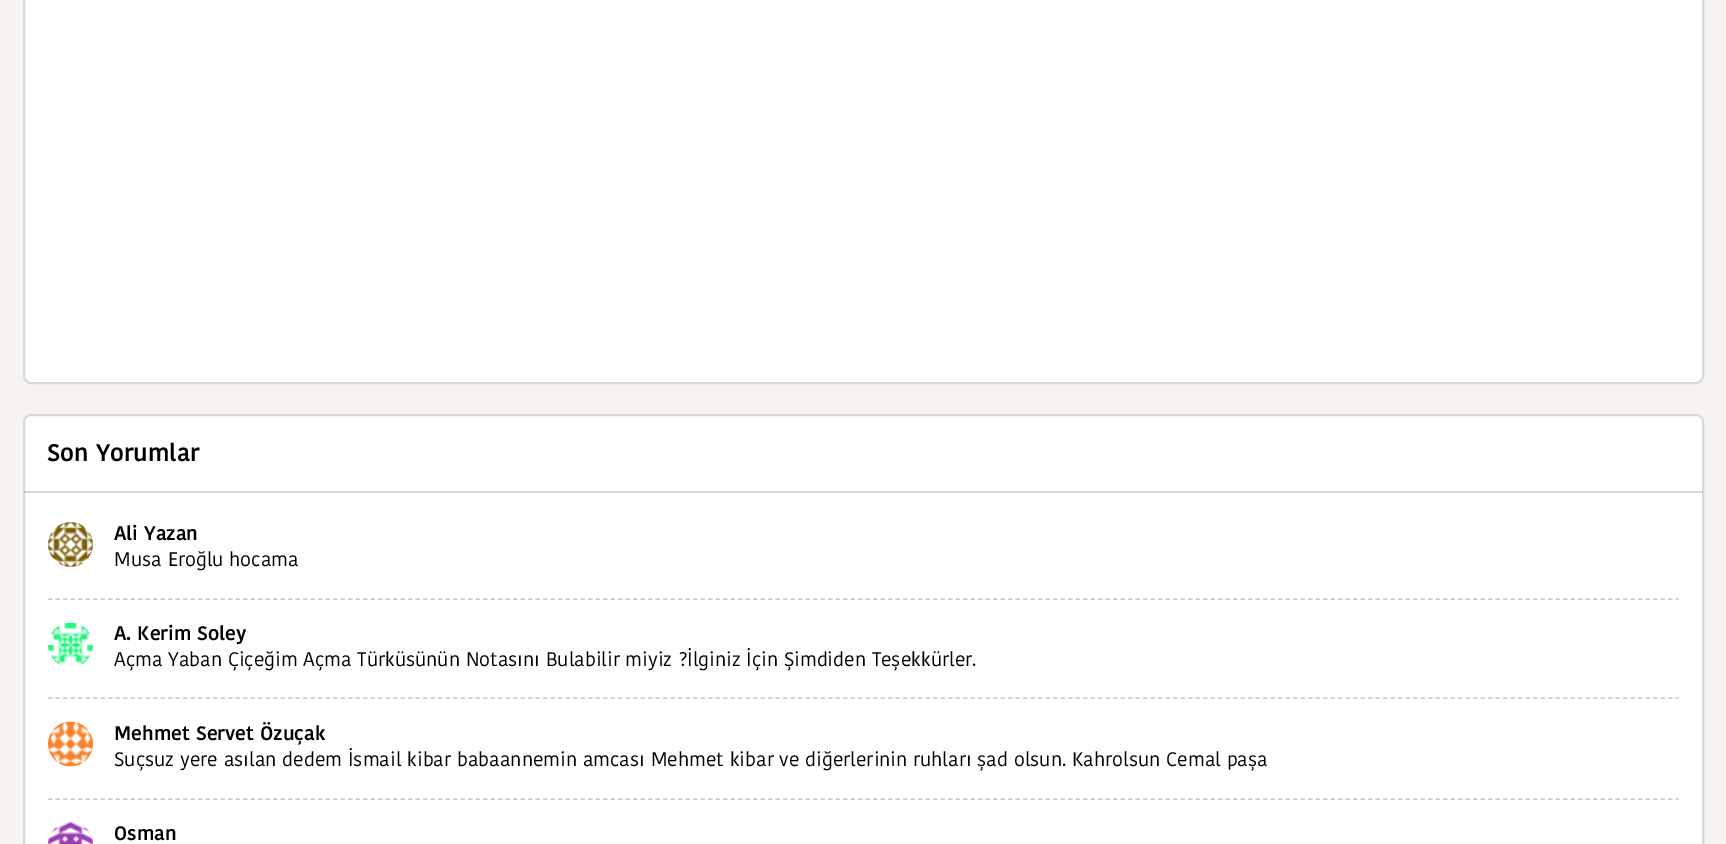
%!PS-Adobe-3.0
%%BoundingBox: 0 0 1726 844
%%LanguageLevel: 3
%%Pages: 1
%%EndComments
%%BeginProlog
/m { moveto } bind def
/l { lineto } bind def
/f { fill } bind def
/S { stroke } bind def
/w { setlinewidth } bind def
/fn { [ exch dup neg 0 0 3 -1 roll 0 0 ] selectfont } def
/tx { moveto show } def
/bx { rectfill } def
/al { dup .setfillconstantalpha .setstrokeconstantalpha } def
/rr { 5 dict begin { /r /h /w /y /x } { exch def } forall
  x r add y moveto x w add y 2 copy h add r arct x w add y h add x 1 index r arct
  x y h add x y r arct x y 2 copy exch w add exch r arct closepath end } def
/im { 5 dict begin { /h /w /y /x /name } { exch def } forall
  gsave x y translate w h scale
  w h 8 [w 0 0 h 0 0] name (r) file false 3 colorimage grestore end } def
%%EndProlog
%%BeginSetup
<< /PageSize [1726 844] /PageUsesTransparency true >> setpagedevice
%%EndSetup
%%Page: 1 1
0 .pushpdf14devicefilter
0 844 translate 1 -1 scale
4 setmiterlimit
0.965 0.953 0.941 setrgbcolor
0 0 1726 844 bx
1 setgray
23 -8 1681 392 8 rr f
0.15 al
0 setgray
2 w
24 -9 1679 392 7 rr S
1 al
1 setgray
23 414 1681 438 8 rr f
0.15 al
0 setgray
24 415 1679 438 7 rr S
24 491 1679 2 bx
/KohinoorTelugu-SemiBold 24 fn
1 al
(Son Yorumlar) 47 461 tx
0.8 setgray
1.5 w
[4.5 3] 0 setdash
48 599 m 1678.5 599 l S
(image0.raw) 48 522 45 45 im
/KohinoorTelugu-SemiBold 19.5 fn
0 setgray
(Ali Yazan) 114 540 tx
/KohinoorTelugu-Regular 19.5 fn
(Musa Eroğlu hocama) 114 566 tx
0.8 setgray
48 698 m 1678.5 698 l S
(image1.raw) 48 622 45 43 im
/KohinoorTelugu-SemiBold 19.5 fn
0 setgray
(A. Kerim Soley) 114 640 tx
/KohinoorTelugu-Regular 19.5 fn
(Açma Yaban Çiçeğim Açma Türküsünün Notasını Bulabilir miyiz ?İlginiz İçin Şimdiden Teşekkürler.) 114 666 tx
0.8 setgray
48 799 m 1678.5 799 l S
(image2.raw) 48 721 45 46 im
/KohinoorTelugu-SemiBold 19.5 fn
0 setgray
(Mehmet Servet Özuçak) 114 740 tx
/KohinoorTelugu-Regular 19.5 fn
(Suçsuz yere asılan dedem İsmail kibar babaannemin amcası Mehmet kibar ve diğerlerinin ruhları şad olsun. Kahrolsun Cemal paşa) 114 766 tx
(image3.raw) 48 822 45 22 im
/KohinoorTelugu-SemiBold 19.5 fn
(Osman) 114 840 tx
.poppdf14devicefilter showpage
%%EOF
